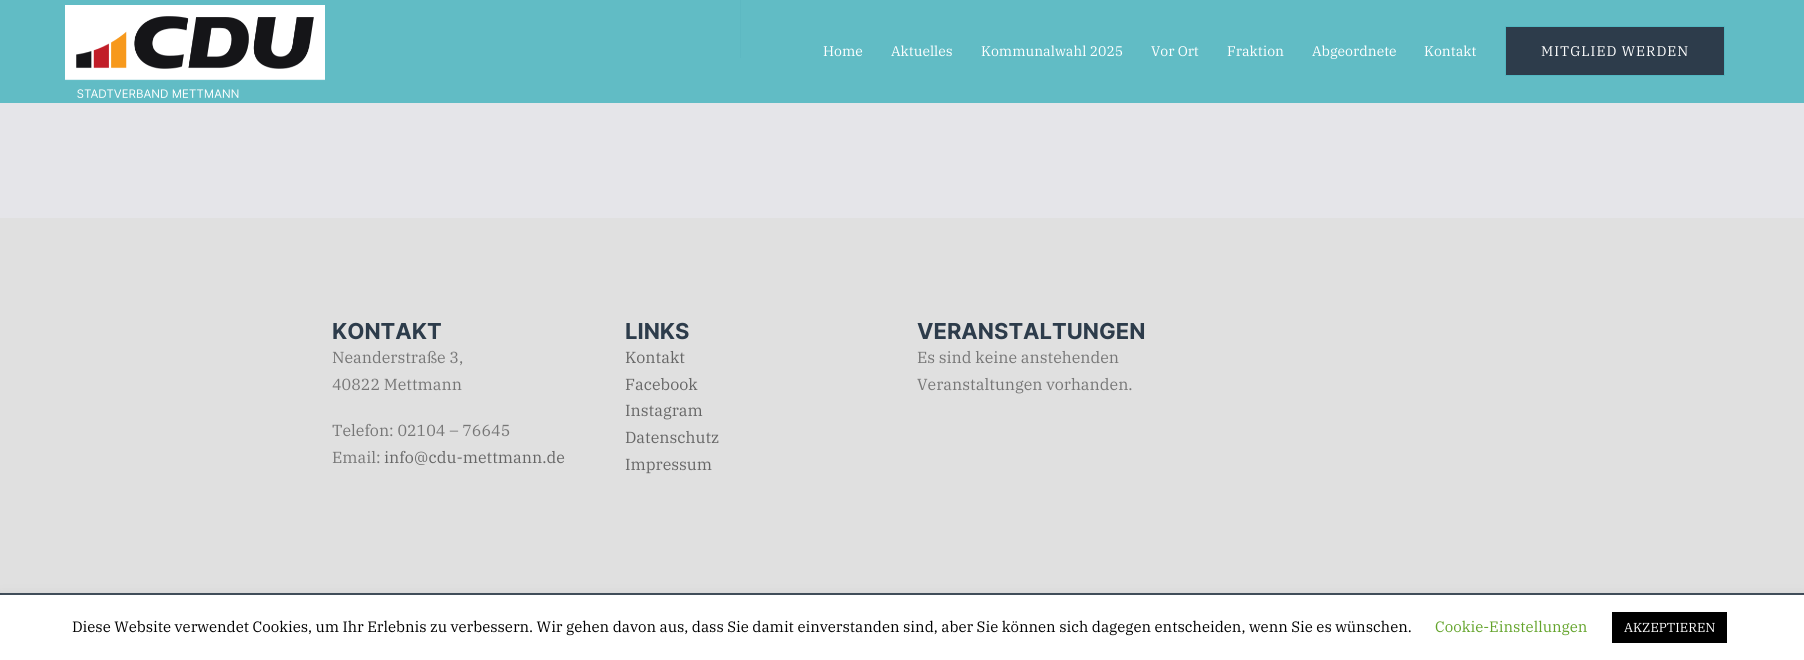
import math
import cairocffi as cairo

surface = cairo.ImageSurface(cairo.FORMAT_RGB24, 1804, 660)
cr = cairo.Context(surface)
options = cairo.FontOptions()
options.set_hint_metrics(cairo.HINT_METRICS_OFF)
options.set_hint_style(cairo.HINT_STYLE_NONE)
cr.set_font_options(options)
cr.set_miter_limit(4)


def use_color(code):
    cr.set_source_rgb(*(v / 255 for v in bytes.fromhex(code[-6:])))


def spaced_text(x, y, s, letter, word):
    cr.move_to(x, y)
    for ch in s:
        cr.show_text(ch)
        cr.rel_move_to(letter + word * (ch == ' '), 0)


def round_rect(x, y, w, h, r):
    cr.new_sub_path()
    for i, (u, v) in enumerate([(x + w - r, y + h - r), (x + r, y + h - r), (x + r, y + r), (x + w - r, y + r)]):
        cr.arc(u, v, r, i * math.pi / 2, (i + 1) * math.pi / 2)
    cr.close_path()


def shadow(x, y, w, h, r, blur, alpha):
    cr.push_group_with_content(cairo.CONTENT_ALPHA)
    cr.set_operator(cairo.OPERATOR_SOURCE)
    for i in range(15, -16, -2):
        e = blur * i / 6
        if min(w, h) + 2 * e > 0:
            cr.set_source_rgba(0, 0, 0, alpha * math.erfc((i - 1) / 8.5) / 2)
            round_rect(x - e, y - e, w + 2 * e, h + 2 * e, max(0, min(r + e + blur * .6, min(w, h) / 2 + e)))
            cr.fill()
    cr.mask(cr.pop_group())


def picture(path, x, y, w, h):
    cr.save()
    cr.set_source_surface(cairo.ImageSurface.create_from_png(path), x, y)
    cr.rectangle(x, y, w, h)
    cr.fill()
    cr.restore()


use_color("#e5e5e9")
cr.paint()
use_color("#61bcc5")
cr.rectangle(0, 0, 1804, 103)
cr.fill()
use_color("#5db8c2")
cr.rectangle(740, 0, 1, 58)
cr.fill()
picture("img1.png", 65, 5, 260, 93)
cr.select_font_face("IBM Plex Serif")
cr.set_font_size(14)
use_color("#ffffff")
cr.move_to(823, 56)
cr.show_text("Home")
cr.move_to(891, 56)
cr.show_text("Aktuelles")
cr.move_to(981, 56)
cr.show_text("Kommunalwahl 2025")
cr.move_to(1151, 56)
cr.show_text("Vor Ort")
cr.move_to(1227, 56)
cr.show_text("Fraktion")
cr.move_to(1312, 56)
cr.show_text("Abgeordnete")
cr.move_to(1424, 56)
cr.show_text("Kontakt")
use_color("#2d3c4b")
cr.rectangle(1505.5, 26.5, 219, 49)
cr.fill_preserve()
use_color("#52b7c1")
cr.set_line_width(1)
cr.stroke()
use_color("#ffffff")
spaced_text(1541, 56, "MITGLIED WERDEN", 1, 0)
use_color("#e0e0e0")
cr.rectangle(0, 218, 1804, 375)
cr.fill()
cr.select_font_face("Inter", cairo.FONT_SLANT_NORMAL, cairo.FONT_WEIGHT_BOLD)
cr.set_font_size(22)
use_color("#2d3c4b")
cr.move_to(332, 339)
cr.show_text("KONTAKT")
cr.select_font_face("IBM Plex Serif")
cr.set_font_size(16)
use_color("#767676")
cr.move_to(332, 363)
cr.show_text("Neanderstraße 3,")
cr.move_to(332, 390)
cr.show_text("40822 Mettmann")
cr.move_to(332, 436)
cr.show_text("Telefon: 02104 – 76645")
cr.move_to(332, 463)
cr.show_text("Email:")
use_color("#666666")
cr.move_to(384, 463)
cr.show_text("info@cdu-mettmann.de")
cr.select_font_face("Inter", cairo.FONT_SLANT_NORMAL, cairo.FONT_WEIGHT_BOLD)
cr.set_font_size(22)
use_color("#2d3c4b")
cr.move_to(625, 339)
cr.show_text("LINKS")
cr.select_font_face("IBM Plex Serif")
cr.set_font_size(16)
use_color("#666666")
cr.move_to(625, 363)
cr.show_text("Kontakt")
cr.move_to(625, 390)
cr.show_text("Facebook")
cr.move_to(625, 416)
cr.show_text("Instagram")
cr.move_to(625, 443)
cr.show_text("Datenschutz")
cr.move_to(625, 470)
cr.show_text("Impressum")
cr.select_font_face("Inter", cairo.FONT_SLANT_NORMAL, cairo.FONT_WEIGHT_BOLD)
cr.set_font_size(22)
use_color("#2d3c4b")
cr.move_to(917, 339)
cr.show_text("VERANSTALTUNGEN")
cr.select_font_face("IBM Plex Serif")
cr.set_font_size(16)
use_color("#767676")
cr.move_to(917, 363)
cr.show_text("Es sind keine anstehenden")
cr.move_to(917, 390)
cr.show_text("Veranstaltungen vorhanden.")
use_color("#2d3c4b")
cr.rectangle(0, 593, 1804, 2)
cr.fill()
use_color("#acabab")
shadow(0, 594, 1804, 65, 0, 5, 0.3)
use_color("#ffffff")
cr.rectangle(0, 595, 1804, 65)
cr.fill()
cr.set_font_size(15)
use_color("#000000")
cr.move_to(72, 632)
cr.show_text("Diese Website verwendet Cookies, um Ihr Erlebnis zu verbessern. Wir gehen davon aus, dass Sie damit einverstanden sind, aber Sie können sich dagegen entscheiden, wenn Sie es wünschen.")
use_color("#62a329")
cr.move_to(1435, 632)
cr.show_text("Cookie-Einstellungen")
use_color("#000000")
cr.rectangle(1612, 612, 115, 31)
cr.fill()
cr.set_font_size(13)
use_color("#ffffff")
cr.move_to(1624, 632)
cr.show_text("AKZEPTIEREN")
surface.write_to_png("result.png")
